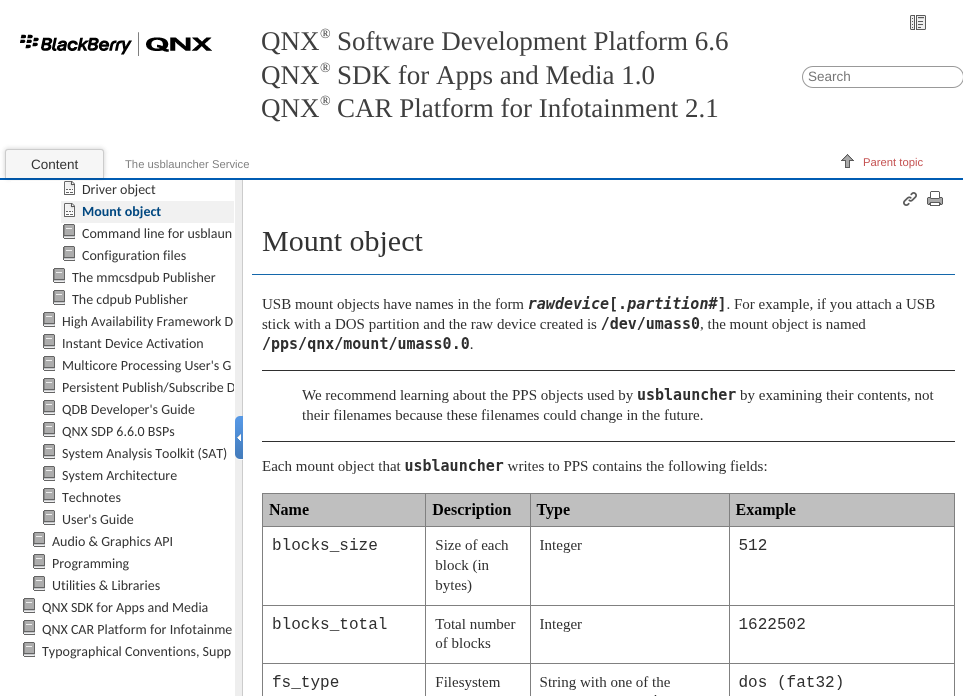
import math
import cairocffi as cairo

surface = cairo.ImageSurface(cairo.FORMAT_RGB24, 963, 699)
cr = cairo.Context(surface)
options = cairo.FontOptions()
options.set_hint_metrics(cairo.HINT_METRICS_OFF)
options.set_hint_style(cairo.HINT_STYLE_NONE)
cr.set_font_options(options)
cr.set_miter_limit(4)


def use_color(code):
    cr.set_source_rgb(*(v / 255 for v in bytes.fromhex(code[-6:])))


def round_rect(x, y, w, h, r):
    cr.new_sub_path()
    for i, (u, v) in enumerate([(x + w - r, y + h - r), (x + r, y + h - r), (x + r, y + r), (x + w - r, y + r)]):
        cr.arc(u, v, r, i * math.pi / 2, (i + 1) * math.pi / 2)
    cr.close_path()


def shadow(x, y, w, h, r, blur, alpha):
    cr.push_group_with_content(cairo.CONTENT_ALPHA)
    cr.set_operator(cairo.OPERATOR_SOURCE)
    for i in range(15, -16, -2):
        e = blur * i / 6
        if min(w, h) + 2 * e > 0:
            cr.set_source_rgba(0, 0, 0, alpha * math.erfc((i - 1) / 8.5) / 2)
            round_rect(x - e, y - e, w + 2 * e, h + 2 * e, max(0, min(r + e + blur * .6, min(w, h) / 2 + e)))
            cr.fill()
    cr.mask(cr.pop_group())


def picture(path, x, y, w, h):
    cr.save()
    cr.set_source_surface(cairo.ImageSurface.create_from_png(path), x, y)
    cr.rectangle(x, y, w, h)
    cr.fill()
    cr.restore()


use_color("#ffffff")
cr.paint()
picture("img1.png", 910, 15, 16, 15)
picture("img2.png", 20, 32, 192, 24)
cr.select_font_face("Liberation Serif")
cr.set_font_size(27)
use_color("#3f3f3f")
cr.move_to(261, 50)
cr.show_text("QNX")
cr.set_font_size(14)
cr.move_to(320, 38)
cr.show_text("®")
cr.set_font_size(27)
cr.move_to(337, 50)
cr.show_text("Software Development Platform 6.6")
cr.move_to(261, 84)
cr.show_text("QNX")
cr.set_font_size(14)
cr.move_to(320, 72)
cr.show_text("®")
cr.set_font_size(27)
cr.move_to(337, 84)
cr.show_text("SDK for Apps and Media 1.0")
cr.move_to(261, 117)
cr.show_text("QNX")
cr.set_font_size(14)
cr.move_to(320, 105)
cr.show_text("®")
cr.set_font_size(27)
cr.move_to(337, 117)
cr.show_text("CAR Platform for Infotainment 2.1")
round_rect(802.5, 66.5, 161, 21, 10.5)
use_color("#999999")
cr.set_line_width(1)
cr.stroke()
cr.select_font_face("Liberation Sans")
cr.set_font_size(13.5)
use_color("#757575")
cr.move_to(808, 81)
cr.show_text("Search")
use_color("#005cb3")
cr.rectangle(0, 178, 963, 2)
cr.fill()
use_color("#000000")
shadow(5, 149, 99, 29, 3, 2.5, 0.2)
use_color("#f6f6f6")
cr.new_path()
cr.move_to(8, 149)
cr.line_to(101, 149)
cr.curve_to(102.5, 149, 104, 150.5, 104, 152)
cr.line_to(104, 178)
cr.line_to(5, 178)
cr.line_to(5, 152)
cr.curve_to(5, 150.5, 6.5, 149, 8, 149)
cr.close_path()
cr.fill()
use_color("#cccccc")
cr.set_fill_rule(cairo.FILL_RULE_EVEN_ODD)
cr.new_path()
cr.move_to(8, 149)
cr.line_to(101, 149)
cr.curve_to(103, 149, 104, 150, 104, 152)
cr.line_to(104, 178)
cr.line_to(5, 178)
cr.line_to(5, 152)
cr.curve_to(5, 150, 6, 149, 8, 149)
cr.close_path()
cr.move_to(8, 150)
cr.line_to(101, 150)
cr.curve_to(102, 150, 103, 151, 103, 152)
cr.line_to(103, 178)
cr.line_to(6, 178)
cr.line_to(6, 152)
cr.curve_to(6, 151, 7, 150, 8, 150)
cr.close_path()
cr.fill()
use_color("#333333")
cr.move_to(31, 169)
cr.show_text("Content")
cr.set_font_size(11.25)
use_color("#808080")
cr.move_to(125, 168)
cr.show_text("The usblauncher Service")
picture("img3.png", 841, 154, 13, 14)
use_color("#c45050")
cr.move_to(863, 166)
cr.show_text("Parent topic")
use_color("#ffffff")
cr.rectangle(11, 181, 91, 1)
cr.fill()
picture("img4.png", 64, 181, 11, 14)
cr.select_font_face("Carlito")
cr.set_font_size(14)
use_color("#333333")
cr.move_to(82, 194)
cr.show_text("Driver object")
use_color("#f1f1f1")
cr.rectangle(61, 201, 173, 22)
cr.fill()
picture("img5.png", 64, 203, 11, 14)
cr.select_font_face("Carlito", cairo.FONT_SLANT_NORMAL, cairo.FONT_WEIGHT_BOLD)
use_color("#004780")
cr.move_to(82, 216)
cr.show_text("Mount object")
picture("img6.png", 63, 224, 12, 15)
cr.select_font_face("Carlito")
use_color("#333333")
cr.move_to(82, 238)
cr.show_text("Command line for usblaun")
picture("img6.png", 63, 246, 12, 15)
cr.move_to(82, 260)
cr.show_text("Configuration files")
picture("img6.png", 53, 268, 12, 15)
cr.move_to(72, 282)
cr.show_text("The mmcsdpub Publisher")
picture("img6.png", 53, 290, 12, 15)
cr.move_to(72, 304)
cr.show_text("The cdpub Publisher")
picture("img6.png", 43, 312, 12, 15)
cr.move_to(62, 326)
cr.show_text("High Availability Framework D")
picture("img6.png", 43, 334, 12, 15)
cr.move_to(62, 348)
cr.show_text("Instant Device Activation")
picture("img6.png", 43, 356, 12, 15)
cr.move_to(62, 370)
cr.show_text("Multicore Processing User's G")
picture("img6.png", 43, 378, 12, 15)
cr.save()
cr.set_fill_rule(cairo.FILL_RULE_WINDING)
cr.rectangle(1, 181, 233, 516)
cr.clip()
cr.move_to(62, 392)
cr.show_text("Persistent Publish/Subscribe D")
cr.restore()
picture("img6.png", 43, 400, 12, 15)
cr.move_to(62, 414)
cr.show_text("QDB Developer's Guide")
picture("img6.png", 43, 422, 12, 15)
cr.move_to(62, 436)
cr.show_text("QNX SDP 6.6.0 BSPs")
picture("img6.png", 43, 444, 12, 15)
cr.move_to(62, 458)
cr.show_text("System Analysis Toolkit (SAT)")
picture("img6.png", 43, 466, 12, 15)
cr.move_to(62, 480)
cr.show_text("System Architecture")
picture("img6.png", 43, 488, 12, 15)
cr.move_to(62, 502)
cr.show_text("Technotes")
picture("img6.png", 43, 510, 12, 15)
cr.move_to(62, 524)
cr.show_text("User's Guide")
picture("img6.png", 33, 532, 12, 15)
cr.move_to(52, 546)
cr.show_text("Audio & Graphics API")
picture("img6.png", 33, 554, 12, 15)
cr.move_to(52, 568)
cr.show_text("Programming")
picture("img6.png", 33, 576, 12, 15)
cr.move_to(52, 590)
cr.show_text("Utilities & Libraries")
picture("img6.png", 23, 598, 12, 15)
cr.move_to(42, 612)
cr.show_text("QNX SDK for Apps and Media")
picture("img6.png", 23, 620, 12, 15)
cr.move_to(42, 634)
cr.show_text("QNX CAR Platform for Infotainme")
picture("img6.png", 23, 642, 12, 15)
cr.move_to(42, 656)
cr.show_text("Typographical Conventions, Supp")
use_color("#eeeeee")
cr.rectangle(235, 180, 7, 516)
cr.fill()
use_color("#cccccc")
cr.rectangle(242, 180, 1, 516)
cr.fill()
picture("img7.png", 235, 416, 8, 44)
picture("img8.png", 252, 191, 703, 505)
surface.write_to_png("result.png")
